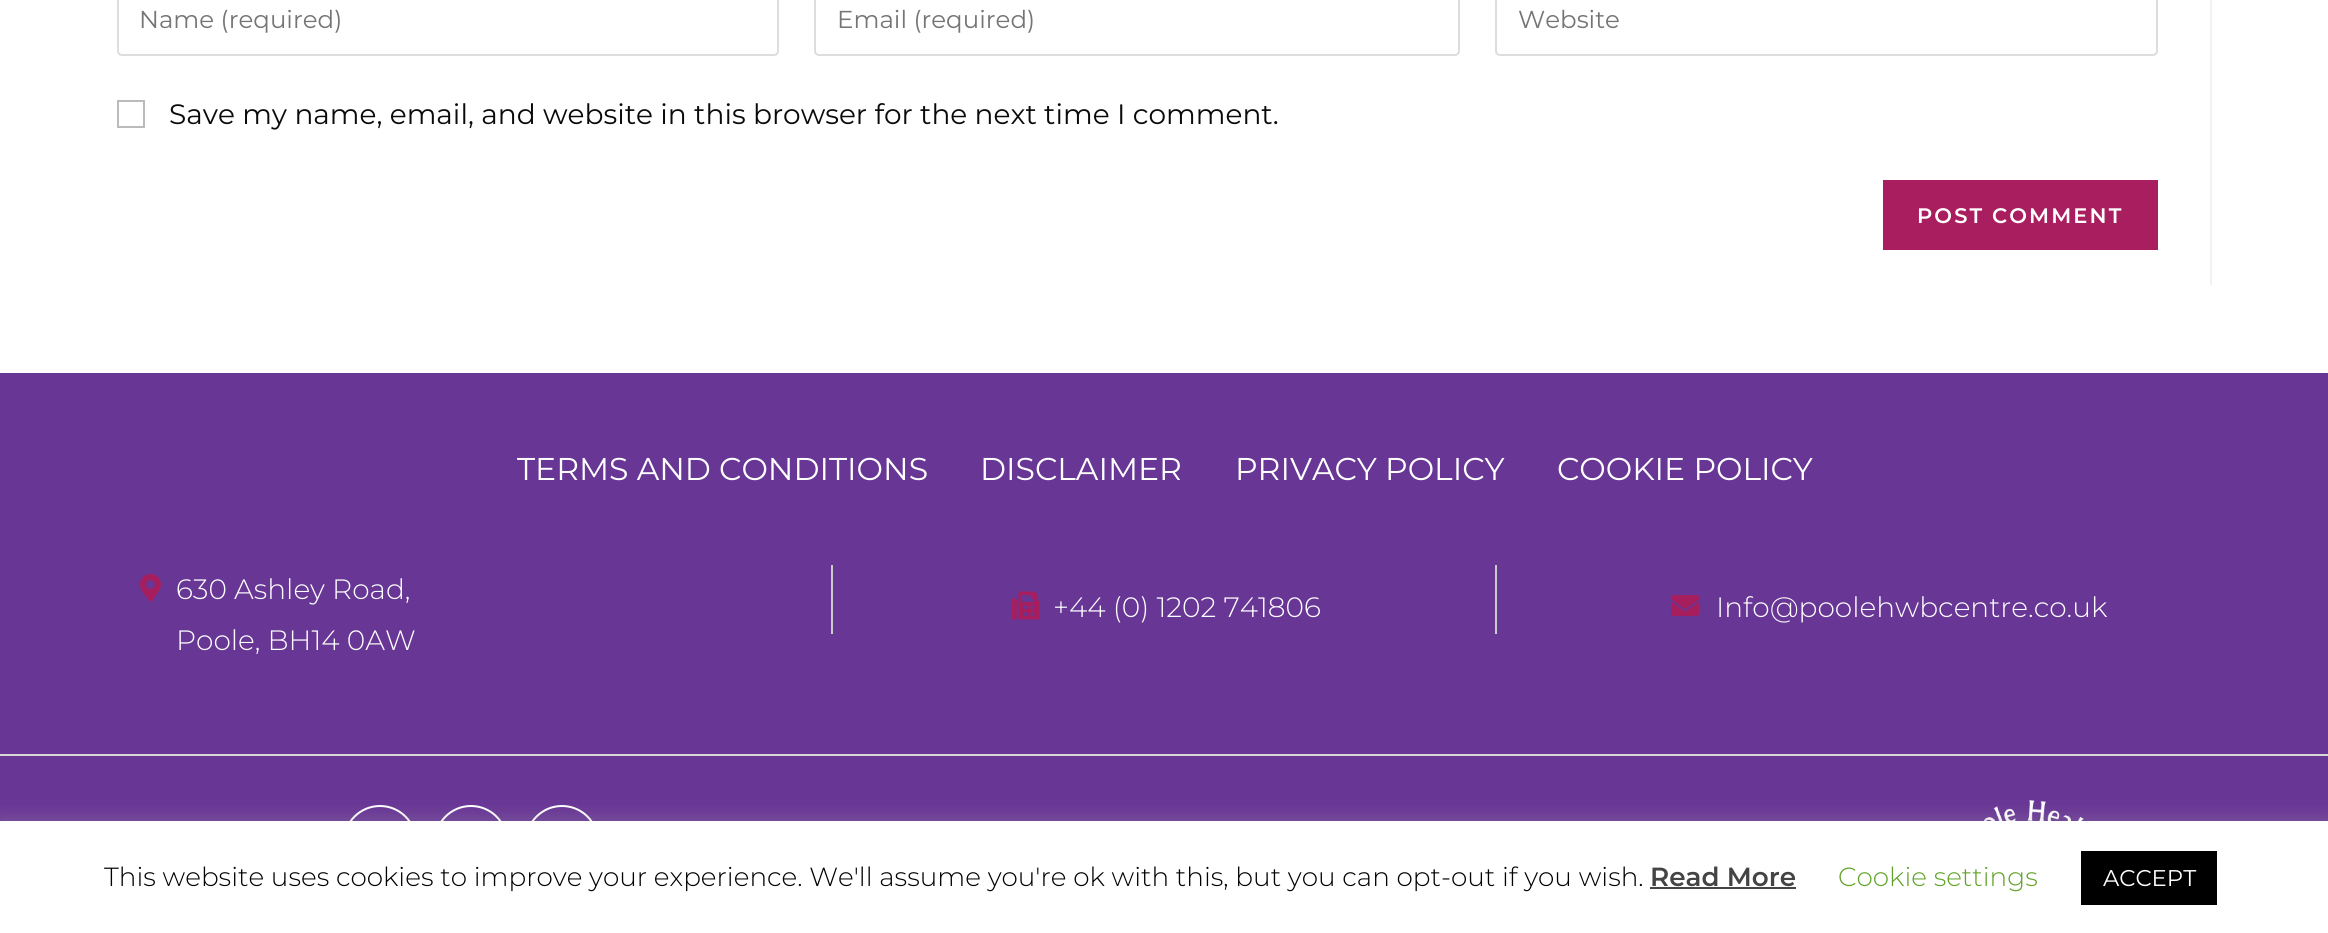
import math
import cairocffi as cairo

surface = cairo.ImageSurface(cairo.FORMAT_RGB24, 2328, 933)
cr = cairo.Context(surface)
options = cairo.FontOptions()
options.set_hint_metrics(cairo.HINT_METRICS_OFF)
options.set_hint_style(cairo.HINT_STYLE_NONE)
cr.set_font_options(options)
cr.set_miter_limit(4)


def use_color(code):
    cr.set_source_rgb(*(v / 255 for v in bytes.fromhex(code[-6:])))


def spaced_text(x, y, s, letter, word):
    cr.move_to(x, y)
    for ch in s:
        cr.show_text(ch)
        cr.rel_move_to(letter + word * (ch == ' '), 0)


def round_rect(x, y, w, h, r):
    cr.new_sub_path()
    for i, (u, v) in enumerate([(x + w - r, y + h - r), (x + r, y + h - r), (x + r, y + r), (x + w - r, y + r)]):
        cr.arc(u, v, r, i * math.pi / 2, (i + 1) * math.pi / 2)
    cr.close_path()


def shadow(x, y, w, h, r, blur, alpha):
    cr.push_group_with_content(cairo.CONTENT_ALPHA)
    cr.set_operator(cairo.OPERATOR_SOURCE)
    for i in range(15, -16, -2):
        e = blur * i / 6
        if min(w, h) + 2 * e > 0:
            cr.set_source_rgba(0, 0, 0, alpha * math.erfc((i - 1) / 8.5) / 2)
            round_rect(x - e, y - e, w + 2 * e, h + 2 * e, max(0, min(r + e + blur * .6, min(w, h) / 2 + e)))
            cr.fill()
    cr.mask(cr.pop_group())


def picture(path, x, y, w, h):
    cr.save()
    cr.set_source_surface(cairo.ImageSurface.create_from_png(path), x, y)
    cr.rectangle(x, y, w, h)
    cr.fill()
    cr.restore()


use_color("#ffffff")
cr.paint()
use_color("#f1f1f1")
cr.rectangle(2210, 0, 2, 285)
cr.fill()
round_rect(118, -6, 660, 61, 4)
use_color("#dddddd")
cr.stroke()
cr.select_font_face("Montserrat")
cr.set_font_size(24.5)
use_color("#757575")
cr.move_to(139, 28)
cr.show_text("Name (required)")
round_rect(815, -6, 644, 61, 4)
use_color("#dddddd")
cr.stroke()
use_color("#757575")
cr.move_to(837, 28)
cr.show_text("Email (required)")
round_rect(1496, -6, 661, 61, 4)
use_color("#dddddd")
cr.stroke()
use_color("#757575")
cr.move_to(1518, 28)
cr.show_text("Website")
cr.rectangle(118, 101, 26, 26)
use_color("#bbbbbb")
cr.stroke()
cr.set_font_size(28)
use_color("#0a0a0a")
cr.move_to(169, 124)
cr.show_text("Save my name, email, and website in this browser for the next time I comment.")
use_color("#a91e5f")
cr.rectangle(1883, 180, 275, 70)
cr.fill()
cr.select_font_face("Montserrat SemiBold")
cr.set_font_size(21)
use_color("#ffffff")
spaced_text(1917, 223, "POST COMMENT", 2.1, 0)
use_color("#683695")
cr.rectangle(0, 373, 2328, 381)
cr.fill()
use_color("#d8d8d8")
cr.rectangle(0, 754, 2328, 2)
cr.fill()
cr.select_font_face("Montserrat")
cr.set_font_size(31.5)
use_color("#ffffff")
cr.move_to(517, 480)
cr.show_text("TERMS AND CONDITIONS")
cr.move_to(980, 480)
cr.show_text("DISCLAIMER")
cr.move_to(1235, 480)
cr.show_text("PRIVACY POLICY")
cr.move_to(1557, 480)
cr.show_text("COOKIE POLICY")
picture("img1.png", 140, 574, 21, 28)
cr.select_font_face("Montserrat Light")
cr.set_font_size(28)
cr.move_to(176, 599)
cr.show_text("630 Ashley Road,")
cr.move_to(176, 650)
cr.show_text("Poole, BH14 0AW")
use_color("#cbcbcb")
cr.rectangle(1495, 565, 2, 69)
cr.fill()
cr.rectangle(831, 565, 2, 69)
cr.fill()
picture("img2.png", 1011, 591, 29, 29)
use_color("#ffffff")
cr.move_to(1053, 617)
cr.show_text("+44 (0) 1202 741806")
picture("img3.png", 1671, 595, 29, 21)
cr.move_to(1716, 617)
cr.show_text("Info@poolehwbcentre.co.uk")
use_color("#683695")
cr.rectangle(0, 756, 2328, 65)
cr.fill()
cr.arc(380, 842, 36, 0, 2 * math.pi)
use_color("#ffffff")
cr.stroke()
cr.arc(471, 842, 36, 0, 2 * math.pi)
cr.stroke()
cr.arc(562, 842, 36, 0, 2 * math.pi)
cr.stroke()
picture("img4.png", 1983, 800, 101, 21)
use_color("#acabab")
shadow(0, 819, 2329, 114, 0, 9, 0.3)
use_color("#ffffff")
cr.rectangle(0, 821, 2328, 112)
cr.fill()
cr.set_font_size(26.25)
use_color("#000000")
cr.move_to(104, 886)
cr.show_text("This website uses cookies to improve your experience. We'll assume you're ok with this, but you can opt-out if you wish.")
cr.select_font_face("Montserrat SemiBold")
use_color("#444444")
cr.move_to(1650, 886)
cr.show_text("Read More")
cr.rectangle(1650, 887, 146, 2)
cr.fill()
cr.select_font_face("Montserrat Light")
use_color("#62a329")
cr.move_to(1838, 886)
cr.show_text("Cookie settings")
use_color("#000000")
cr.rectangle(2081, 851, 136, 54)
cr.fill()
cr.select_font_face("Montserrat")
cr.set_font_size(22.75)
use_color("#ffffff")
cr.move_to(2103, 886)
cr.show_text("ACCEPT")
surface.write_to_png("result.png")
